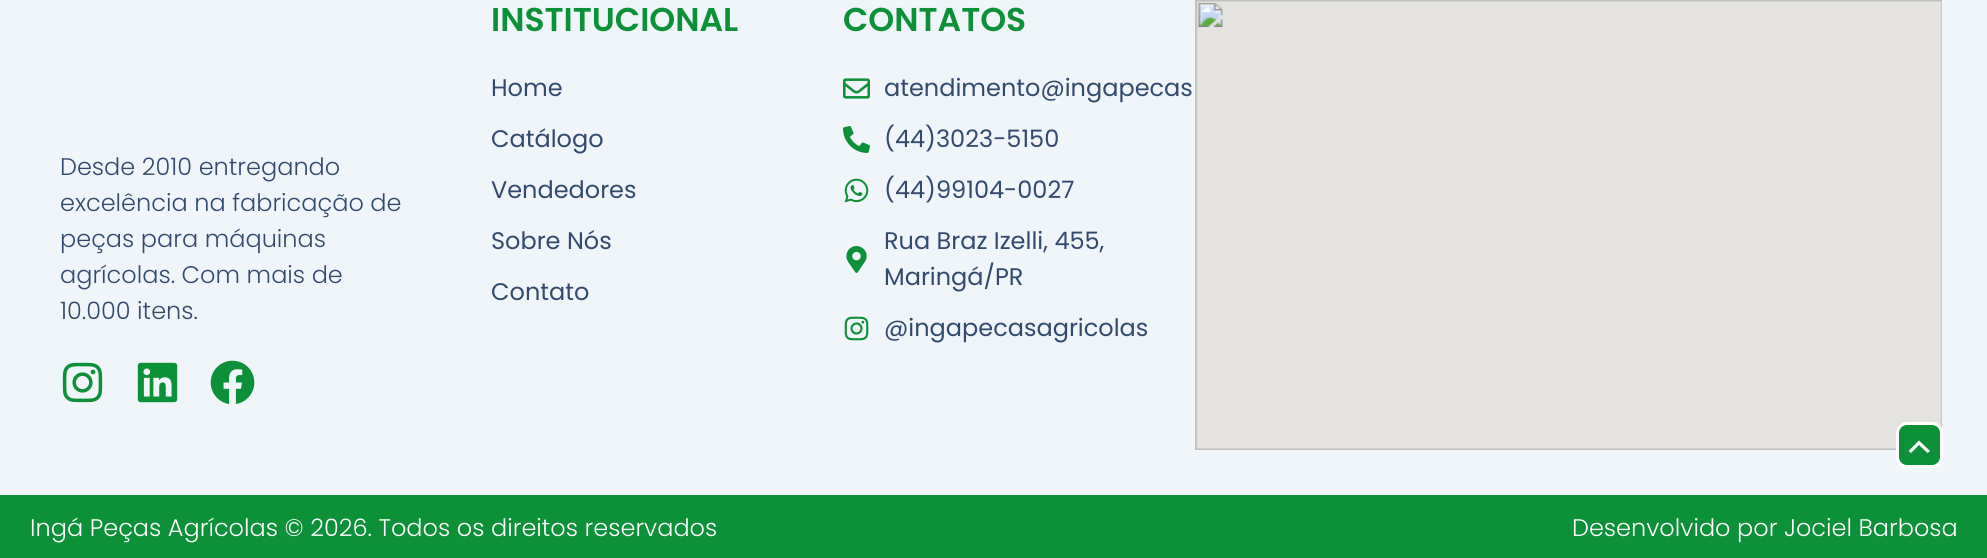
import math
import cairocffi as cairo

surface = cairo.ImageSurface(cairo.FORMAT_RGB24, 1987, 558)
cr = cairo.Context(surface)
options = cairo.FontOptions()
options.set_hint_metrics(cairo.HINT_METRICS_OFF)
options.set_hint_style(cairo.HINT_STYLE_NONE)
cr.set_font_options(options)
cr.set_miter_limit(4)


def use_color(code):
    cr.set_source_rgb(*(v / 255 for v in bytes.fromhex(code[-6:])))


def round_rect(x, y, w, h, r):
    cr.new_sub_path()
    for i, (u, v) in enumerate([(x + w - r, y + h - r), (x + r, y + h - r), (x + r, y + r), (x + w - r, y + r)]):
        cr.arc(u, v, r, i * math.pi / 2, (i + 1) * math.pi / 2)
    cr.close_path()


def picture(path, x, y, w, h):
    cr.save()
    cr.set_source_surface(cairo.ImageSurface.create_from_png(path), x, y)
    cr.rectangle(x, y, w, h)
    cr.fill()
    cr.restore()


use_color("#f0f5fa")
cr.paint()
cr.select_font_face("Poppins Light")
cr.set_font_size(24)
use_color("#324a6d")
cr.move_to(60, 175)
cr.show_text("Desde 2010 entregando")
cr.move_to(60, 211)
cr.show_text("excelência na fabricação de")
cr.move_to(60, 247)
cr.show_text("peças para máquinas")
cr.move_to(60, 283)
cr.show_text("agrícolas. Com mais de")
cr.move_to(60, 319)
cr.show_text("10.000 itens.")
picture("img1.png", 62, 362, 41, 41)
picture("img2.png", 137, 362, 41, 41)
picture("img3.png", 210, 360, 45, 44)
cr.select_font_face("Poppins SemiBold")
cr.set_font_size(33)
use_color("#0c9038")
cr.move_to(491, 31)
cr.show_text("INSTITUCIONAL")
cr.select_font_face("Poppins")
cr.set_font_size(24)
use_color("#324a6d")
cr.move_to(491, 96)
cr.show_text("Home")
cr.move_to(491, 147)
cr.show_text("Catálogo")
cr.move_to(491, 198)
cr.show_text("Vendedores")
cr.move_to(491, 249)
cr.show_text("Sobre Nós")
cr.move_to(491, 300)
cr.show_text("Contato")
cr.select_font_face("Poppins SemiBold")
cr.set_font_size(33)
use_color("#0c9038")
cr.move_to(843, 31)
cr.show_text("CONTATOS")
picture("img4.png", 843, 78, 27, 21)
cr.select_font_face("Poppins")
cr.set_font_size(24)
use_color("#324a6d")
cr.move_to(884, 96)
cr.show_text("atendimento@ingapecas")
picture("img5.png", 843, 126, 27, 27)
cr.move_to(884, 147)
cr.show_text("(44)3023-5150")
picture("img6.png", 844, 178, 25, 25)
cr.move_to(884, 198)
cr.show_text("(44)99104-0027")
picture("img7.png", 846, 246, 21, 27)
cr.move_to(884, 249)
cr.show_text("Rua Braz Izelli, 455,")
cr.move_to(884, 285)
cr.show_text("Maringá/PR")
picture("img8.png", 844, 316, 25, 25)
cr.move_to(884, 336)
cr.show_text("@ingapecasagricolas")
picture("img9.png", 1195, 0, 747, 450)
use_color("#0c9038")
cr.rectangle(0, 495, 1987, 63)
cr.fill()
cr.select_font_face("Poppins Light")
use_color("#ffffff")
cr.move_to(30, 536)
cr.show_text("Ingá Peças Agrícolas © 2026. Todos os direitos reservados")
cr.move_to(1572, 536)
cr.show_text("Desenvolvido por Jociel Barbosa")
use_color("#0c9038")
round_rect(1897.5, 423.5, 44, 43, 9.5)
cr.fill_preserve()
use_color("#ffffff")
cr.set_line_width(3)
cr.stroke()
cr.new_path()
cr.move_to(1930, 451)
cr.line_to(1919, 440.5)
cr.line_to(1908.5, 451)
cr.line_to(1911, 453)
cr.line_to(1919, 445)
cr.line_to(1927.5, 453)
cr.close_path()
cr.fill()
surface.write_to_png("result.png")
